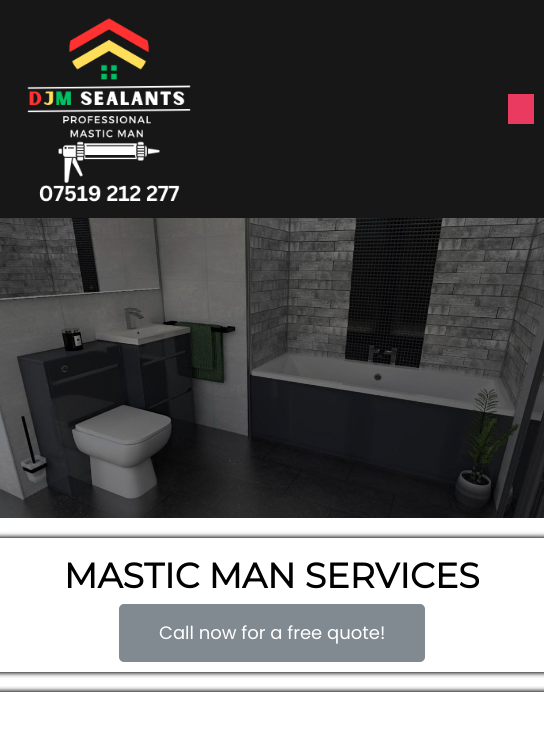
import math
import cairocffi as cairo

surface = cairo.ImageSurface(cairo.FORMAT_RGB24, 544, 748)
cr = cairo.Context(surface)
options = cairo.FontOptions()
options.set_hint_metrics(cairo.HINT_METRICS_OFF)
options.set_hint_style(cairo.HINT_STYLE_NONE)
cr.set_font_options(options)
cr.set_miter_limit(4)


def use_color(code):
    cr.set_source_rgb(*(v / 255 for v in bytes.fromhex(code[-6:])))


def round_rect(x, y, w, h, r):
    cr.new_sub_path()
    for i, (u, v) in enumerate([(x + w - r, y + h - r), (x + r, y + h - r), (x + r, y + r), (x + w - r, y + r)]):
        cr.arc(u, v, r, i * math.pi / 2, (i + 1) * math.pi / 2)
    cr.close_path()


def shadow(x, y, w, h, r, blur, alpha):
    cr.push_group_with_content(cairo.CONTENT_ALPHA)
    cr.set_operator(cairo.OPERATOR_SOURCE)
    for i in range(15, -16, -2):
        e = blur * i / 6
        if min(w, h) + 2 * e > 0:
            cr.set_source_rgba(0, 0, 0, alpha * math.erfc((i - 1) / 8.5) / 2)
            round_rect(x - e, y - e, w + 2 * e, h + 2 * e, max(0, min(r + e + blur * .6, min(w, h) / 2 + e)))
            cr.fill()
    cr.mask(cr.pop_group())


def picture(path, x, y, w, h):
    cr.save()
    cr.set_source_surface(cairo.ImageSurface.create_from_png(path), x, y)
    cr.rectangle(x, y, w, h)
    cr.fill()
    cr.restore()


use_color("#ffffff")
cr.paint()
use_color("#171717")
cr.rectangle(0, 0, 544, 218)
cr.fill()
picture("img1.png", 27, 18, 164, 184)
use_color("#ea3a60")
cr.rectangle(508, 94, 26, 30)
cr.fill()
picture("img2.png", 0, 218, 544, 300)
cr.save()
cr.set_fill_rule(cairo.FILL_RULE_EVEN_ODD)
cr.new_path()
cr.move_to(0, 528)
cr.line_to(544, 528)
cr.line_to(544, 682)
cr.line_to(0, 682)
cr.close_path()
cr.move_to(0, 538)
cr.line_to(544, 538)
cr.line_to(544, 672)
cr.line_to(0, 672)
cr.close_path()
cr.clip()
use_color("#000000")
shadow(-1, 537, 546, 136, 0, 2.5, 1)
cr.restore()
cr.select_font_face("Montserrat", cairo.FONT_SLANT_NORMAL, cairo.FONT_WEIGHT_BOLD)
cr.set_font_size(35)
use_color("#000000")
cr.move_to(64, 588)
cr.show_text("MASTIC MAN SERVICES")
use_color("#818a91")
round_rect(119, 604, 306, 58, 5)
cr.fill()
cr.select_font_face("Poppins")
cr.set_font_size(18)
use_color("#ffffff")
cr.move_to(159, 639)
cr.show_text("Call now for a free quote!")
cr.save()
cr.rectangle(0, 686, 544, 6)
cr.clip()
use_color("#000000")
shadow(-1, 691, 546, 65, 0, 2.5, 1)
cr.restore()
surface.write_to_png("result.png")
